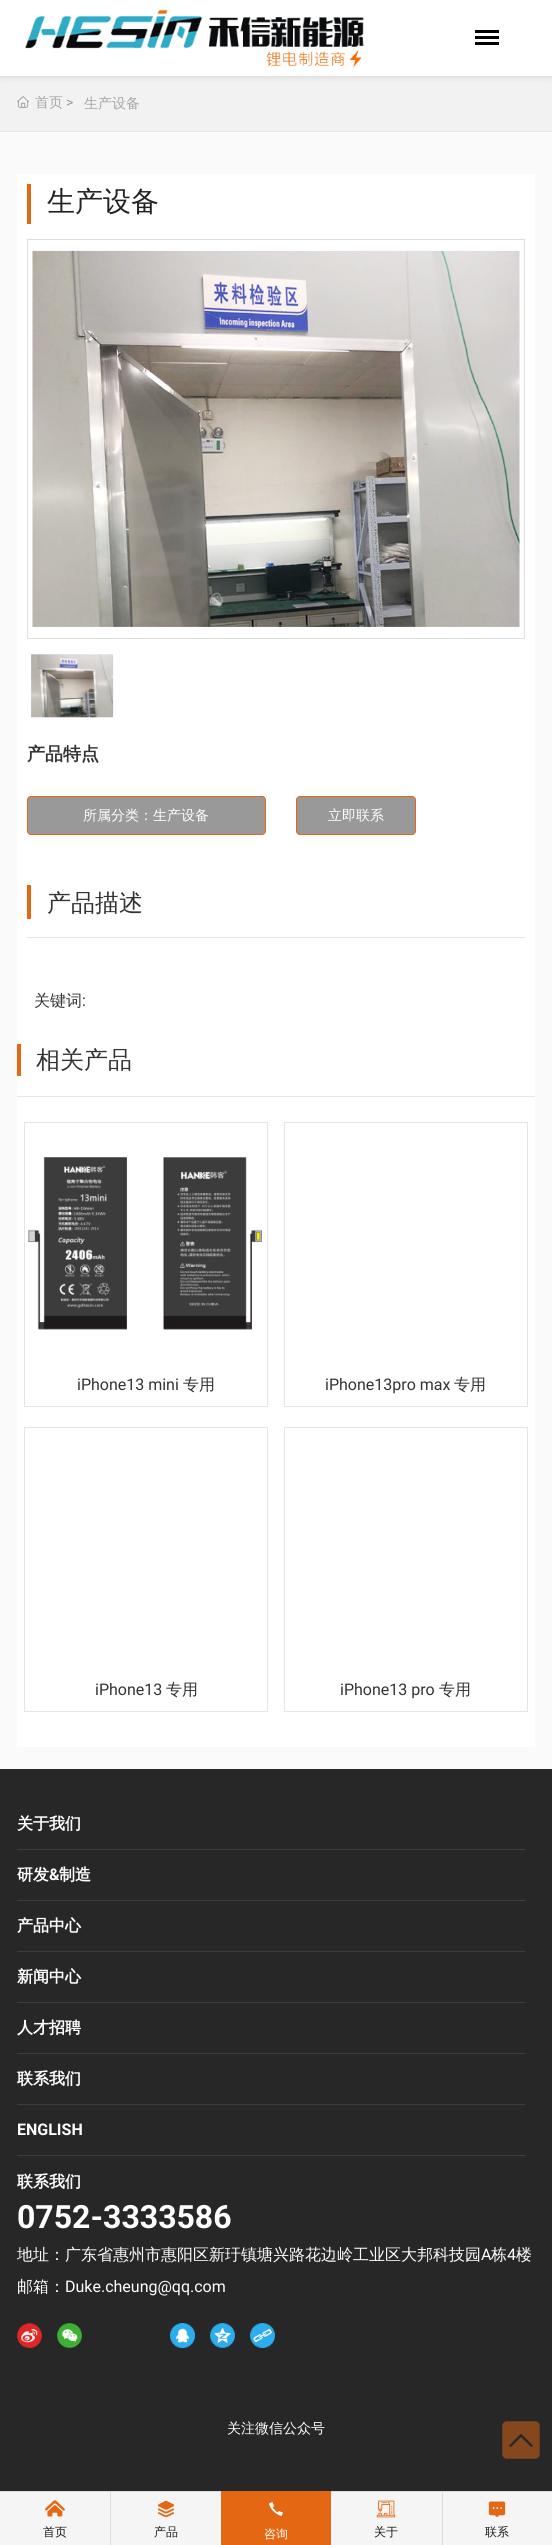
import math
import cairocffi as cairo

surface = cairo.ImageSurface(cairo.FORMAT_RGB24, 552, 2545)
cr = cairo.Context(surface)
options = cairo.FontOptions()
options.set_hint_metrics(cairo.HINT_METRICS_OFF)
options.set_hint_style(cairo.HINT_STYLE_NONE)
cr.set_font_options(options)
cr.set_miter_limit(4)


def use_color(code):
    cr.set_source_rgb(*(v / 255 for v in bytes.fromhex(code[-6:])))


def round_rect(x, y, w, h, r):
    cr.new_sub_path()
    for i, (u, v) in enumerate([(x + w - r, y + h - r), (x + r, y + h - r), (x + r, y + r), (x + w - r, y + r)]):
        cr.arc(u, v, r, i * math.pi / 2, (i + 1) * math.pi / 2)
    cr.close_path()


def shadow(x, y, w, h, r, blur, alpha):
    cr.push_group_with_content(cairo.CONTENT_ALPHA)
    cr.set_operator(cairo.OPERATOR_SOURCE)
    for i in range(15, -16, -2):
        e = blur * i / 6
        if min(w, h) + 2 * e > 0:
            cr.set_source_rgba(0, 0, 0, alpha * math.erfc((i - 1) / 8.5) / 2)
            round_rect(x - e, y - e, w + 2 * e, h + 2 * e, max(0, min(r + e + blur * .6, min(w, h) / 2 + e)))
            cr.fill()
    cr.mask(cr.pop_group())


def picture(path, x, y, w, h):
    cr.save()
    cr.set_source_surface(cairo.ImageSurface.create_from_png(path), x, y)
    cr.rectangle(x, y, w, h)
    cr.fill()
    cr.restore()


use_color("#f2f2f3")
cr.paint()
use_color("#000000")
shadow(0, 0, 552, 76, 0, 4, 0.15)
use_color("#ffffff")
cr.rectangle(0, 0, 552, 76)
cr.fill()
picture("img1.png", 25, 9, 339, 59)
use_color("#000000")
cr.rectangle(475, 36, 24, 3)
cr.fill()
cr.rectangle(475, 30, 24, 3)
cr.fill()
cr.rectangle(475, 42, 24, 3)
cr.fill()
use_color("#e7e7e9")
cr.rectangle(0, 131, 552, 1)
cr.fill()
picture("img2.png", 17, 96, 12, 12)
cr.select_font_face("WenQuanYi Zen Hei Medium")
cr.set_font_size(14)
use_color("#a6a6a7")
cr.move_to(35, 107)
cr.show_text("首页")
cr.select_font_face("Roboto")
use_color("#999999")
cr.move_to(66, 107)
cr.show_text(">")
cr.select_font_face("WenQuanYi Zen Hei Medium")
use_color("#a6a6a7")
cr.move_to(84, 108)
cr.show_text("生产设备")
use_color("#fafafa")
cr.rectangle(0, 132, 552, 1637)
cr.fill()
use_color("#ffffff")
cr.rectangle(17, 174, 518, 1573)
cr.fill()
use_color("#e46713")
cr.rectangle(27, 184, 4, 40)
cr.fill()
cr.set_font_size(28)
use_color("#222222")
cr.move_to(47, 211)
cr.show_text("生产设备")
cr.rectangle(27.5, 239.5, 497, 399)
use_color("#dddddd")
cr.set_line_width(1)
cr.stroke()
picture("img3.png", 32, 250, 488, 377)
picture("img4.png", 31, 654, 83, 64)
cr.select_font_face("WenQuanYi Zen Hei", cairo.FONT_SLANT_NORMAL, cairo.FONT_WEIGHT_BOLD)
cr.set_font_size(18)
use_color("#333333")
cr.move_to(27, 760)
cr.show_text("产品特点")
use_color("#999999")
round_rect(27.5, 796.5, 238, 38, 3.5)
cr.fill_preserve()
use_color("#e46713")
cr.stroke()
cr.select_font_face("WenQuanYi Zen Hei Medium")
cr.set_font_size(14)
use_color("#ffffff")
cr.move_to(83, 820)
cr.show_text("所属分类：生产设备")
use_color("#999999")
round_rect(296.5, 796.5, 119, 38, 3.5)
cr.fill_preserve()
use_color("#e46713")
cr.stroke()
use_color("#ffffff")
cr.move_to(328, 820)
cr.show_text("立即联系")
use_color("#e46713")
cr.rectangle(27, 885, 4, 34)
cr.fill()
cr.set_font_size(24)
use_color("#333333")
cr.move_to(47, 911)
cr.show_text("产品描述")
use_color("#e6e6e6")
cr.rectangle(27, 937, 498, 1)
cr.fill()
cr.set_font_size(16)
use_color("#333333")
cr.move_to(34, 1006)
cr.show_text("关键词")
cr.select_font_face("Roboto")
cr.move_to(82, 1006)
cr.show_text(":")
use_color("#e46713")
cr.rectangle(17, 1044, 4, 32)
cr.fill()
cr.select_font_face("WenQuanYi Zen Hei Medium")
cr.set_font_size(24)
use_color("#333333")
cr.move_to(36, 1068)
cr.show_text("相关产品")
use_color("#e5e5e5")
cr.rectangle(17, 1096, 518, 1)
cr.fill()
cr.rectangle(24.5, 1122.5, 243, 284)
cr.stroke()
picture("img5.png", 28, 1157, 234, 173)
cr.select_font_face("Roboto")
cr.set_font_size(16)
use_color("#333333")
cr.move_to(77, 1390)
cr.show_text("iPhone13 mini")
cr.select_font_face("WenQuanYi Zen Hei Medium")
cr.move_to(183, 1390)
cr.show_text("专用")
cr.rectangle(284.5, 1122.5, 243, 284)
use_color("#e5e5e5")
cr.stroke()
cr.select_font_face("Roboto")
use_color("#333333")
cr.move_to(325, 1390)
cr.show_text("iPhone13pro max")
cr.select_font_face("WenQuanYi Zen Hei Medium")
cr.move_to(454, 1390)
cr.show_text("专用")
cr.rectangle(24.5, 1427.5, 243, 284)
use_color("#e5e5e5")
cr.stroke()
cr.select_font_face("Roboto")
use_color("#333333")
cr.move_to(95, 1695)
cr.show_text("iPhone13")
cr.select_font_face("WenQuanYi Zen Hei Medium")
cr.move_to(166, 1695)
cr.show_text("专用")
cr.rectangle(284.5, 1427.5, 243, 284)
use_color("#e5e5e5")
cr.stroke()
cr.select_font_face("Roboto")
use_color("#333333")
cr.move_to(340, 1695)
cr.show_text("iPhone13 pro")
cr.select_font_face("WenQuanYi Zen Hei Medium")
cr.move_to(439, 1695)
cr.show_text("专用")
use_color("#272727")
cr.rectangle(0, 1769, 552, 722)
cr.fill()
use_color("#3d3d3d")
cr.rectangle(17, 1849, 508, 1)
cr.fill()
cr.select_font_face("WenQuanYi Zen Hei", cairo.FONT_SLANT_NORMAL, cairo.FONT_WEIGHT_BOLD)
use_color("#ffffff")
cr.move_to(17, 1829)
cr.show_text("关于我们")
use_color("#3d3d3d")
cr.rectangle(17, 1900, 508, 1)
cr.fill()
use_color("#ffffff")
cr.move_to(17, 1880)
cr.show_text("研发")
cr.select_font_face("Roboto", cairo.FONT_SLANT_NORMAL, cairo.FONT_WEIGHT_BOLD)
cr.move_to(49, 1880)
cr.show_text("&")
cr.select_font_face("WenQuanYi Zen Hei", cairo.FONT_SLANT_NORMAL, cairo.FONT_WEIGHT_BOLD)
cr.move_to(59, 1880)
cr.show_text("制造")
use_color("#3d3d3d")
cr.rectangle(17, 1951, 508, 1)
cr.fill()
use_color("#ffffff")
cr.move_to(17, 1931)
cr.show_text("产品中心")
use_color("#3d3d3d")
cr.rectangle(17, 2002, 508, 1)
cr.fill()
use_color("#ffffff")
cr.move_to(17, 1982)
cr.show_text("新闻中心")
use_color("#3d3d3d")
cr.rectangle(17, 2053, 508, 1)
cr.fill()
use_color("#ffffff")
cr.move_to(17, 2033)
cr.show_text("人才招聘")
use_color("#3d3d3d")
cr.rectangle(17, 2104, 508, 1)
cr.fill()
use_color("#ffffff")
cr.move_to(17, 2084)
cr.show_text("联系我们")
use_color("#3d3d3d")
cr.rectangle(17, 2155, 508, 1)
cr.fill()
cr.select_font_face("Roboto", cairo.FONT_SLANT_NORMAL, cairo.FONT_WEIGHT_BOLD)
use_color("#ffffff")
cr.move_to(17, 2135)
cr.show_text("ENGLISH")
cr.select_font_face("WenQuanYi Zen Hei", cairo.FONT_SLANT_NORMAL, cairo.FONT_WEIGHT_BOLD)
cr.move_to(17, 2187)
cr.show_text("联系我们")
cr.select_font_face("Roboto", cairo.FONT_SLANT_NORMAL, cairo.FONT_WEIGHT_BOLD)
cr.set_font_size(32)
cr.move_to(17, 2228)
cr.show_text("0752-3333586")
cr.select_font_face("WenQuanYi Zen Hei Medium")
cr.set_font_size(16)
cr.move_to(17, 2260)
cr.show_text("地址：广东省惠州市惠阳区新玗镇塘兴路花边岭工业区大邦科技园")
cr.select_font_face("Roboto")
cr.move_to(481, 2260)
cr.show_text("A")
cr.select_font_face("WenQuanYi Zen Hei Medium")
cr.move_to(491, 2260)
cr.show_text("栋")
cr.select_font_face("Roboto")
cr.move_to(507, 2260)
cr.show_text("4")
cr.select_font_face("WenQuanYi Zen Hei Medium")
cr.move_to(516, 2260)
cr.show_text("楼")
cr.move_to(17, 2292)
cr.show_text("邮箱：")
cr.select_font_face("Roboto")
cr.move_to(65, 2292)
cr.show_text("Duke.cheung@qq.com")
picture("img6.png", 17, 2323, 25, 25)
picture("img7.png", 57, 2323, 25, 25)
picture("img8.png", 170, 2323, 25, 25)
picture("img9.png", 210, 2323, 25, 25)
picture("img10.png", 250, 2323, 25, 25)
cr.select_font_face("WenQuanYi Zen Hei Medium")
cr.set_font_size(14)
cr.move_to(227, 2433)
cr.show_text("关注微信公众号")
picture("img11.png", 502, 2421, 38, 38)
use_color("#f5f5f5")
cr.rectangle(0, 2492, 552, 53)
cr.fill()
use_color("#dbdbdb")
cr.rectangle(0, 2491, 221, 1)
cr.fill()
picture("img12.png", 45, 2500, 20, 17)
cr.set_font_size(12)
use_color("#1a1a1a")
cr.move_to(43, 2536)
cr.show_text("首页")
use_color("#dbdbdb")
cr.rectangle(110, 2491, 1, 54)
cr.fill()
picture("img13.png", 157, 2500, 18, 18)
use_color("#1a1a1a")
cr.move_to(154, 2536)
cr.show_text("产品")
use_color("#e46713")
cr.rectangle(221, 2491, 110, 54)
cr.fill()
picture("img14.png", 269, 2502, 14, 14)
use_color("#ffffff")
cr.move_to(264, 2538)
cr.show_text("咨询")
use_color("#dbdbdb")
cr.rectangle(331, 2491, 221, 1)
cr.fill()
picture("img15.png", 376, 2500, 20, 18)
use_color("#1a1a1a")
cr.move_to(374, 2536)
cr.show_text("关于")
use_color("#dbdbdb")
cr.rectangle(442, 2491, 1, 54)
cr.fill()
picture("img16.png", 488, 2501, 18, 16)
use_color("#1a1a1a")
cr.move_to(485, 2536)
cr.show_text("联系")
surface.write_to_png("result.png")
